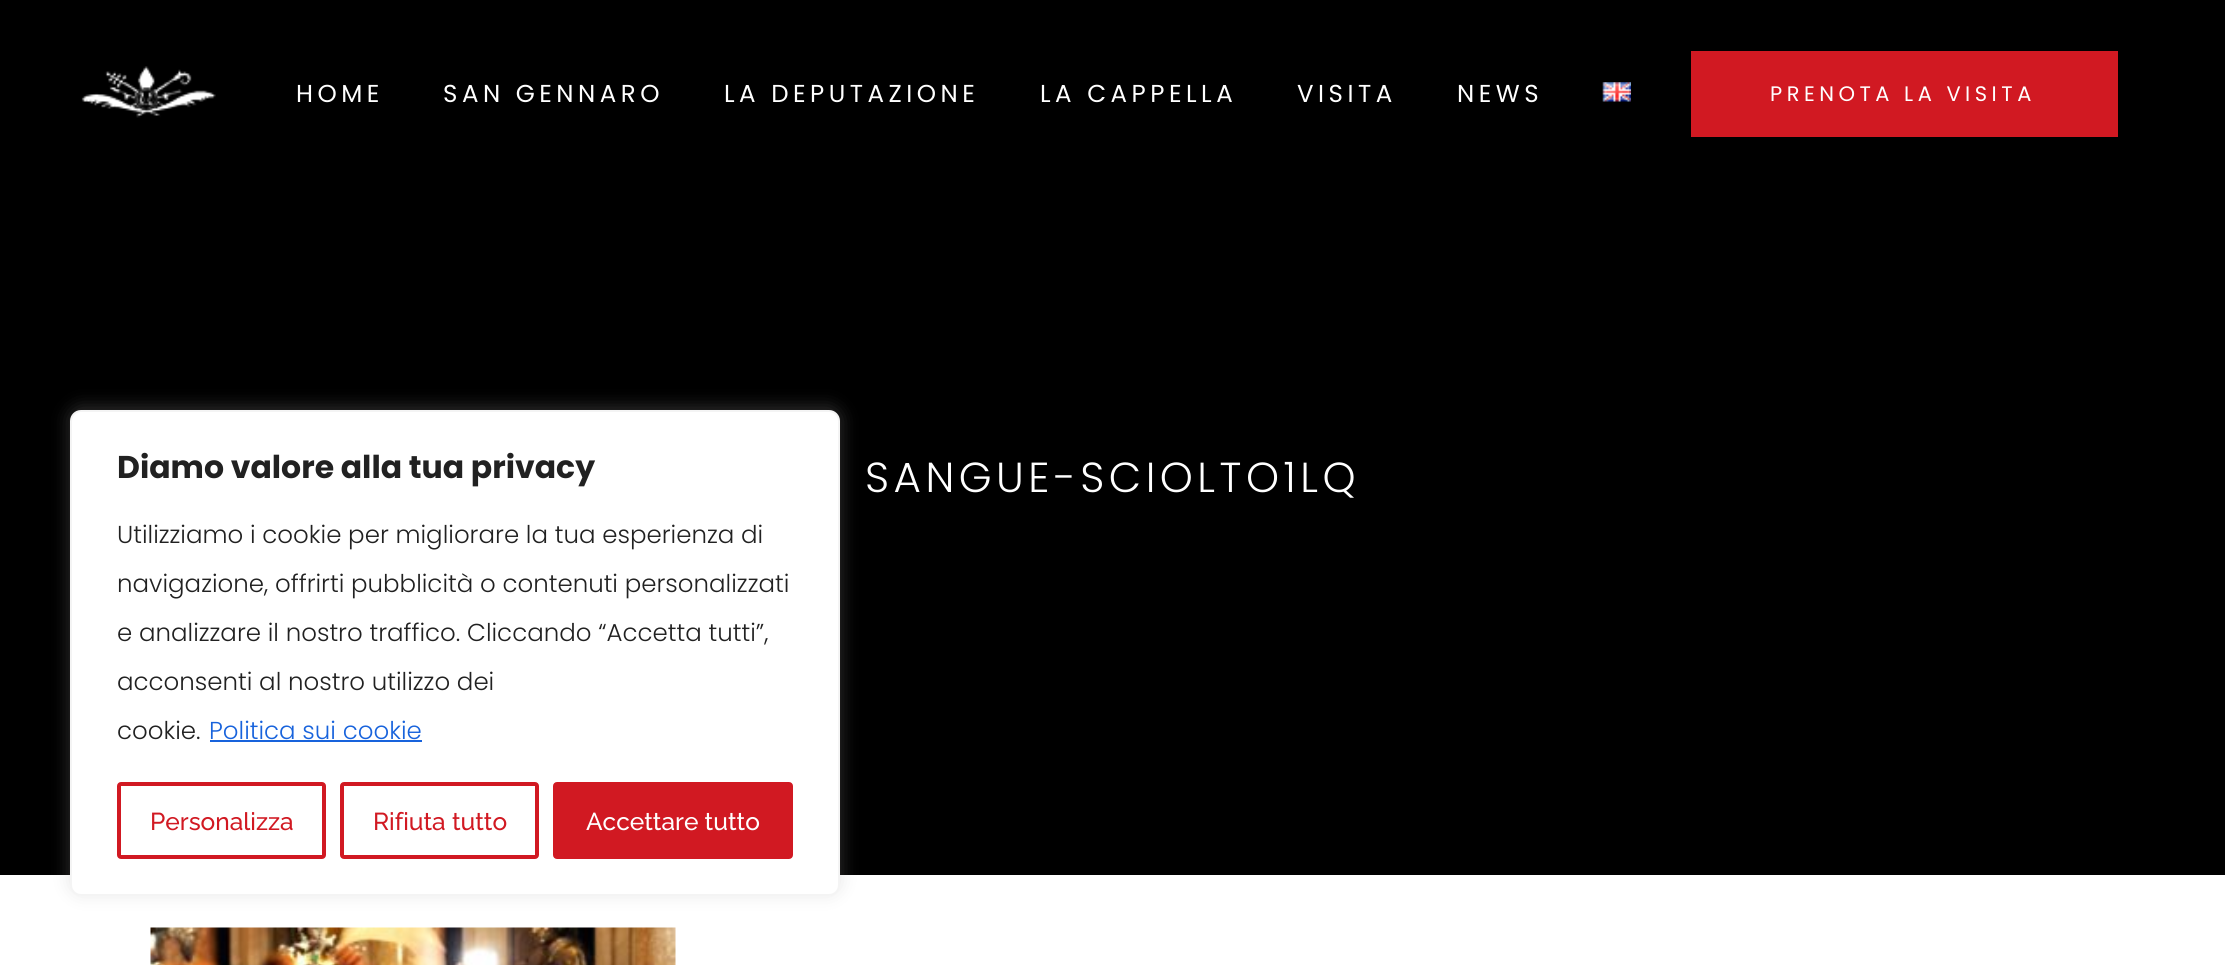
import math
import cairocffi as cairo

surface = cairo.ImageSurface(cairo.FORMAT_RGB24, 2225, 965)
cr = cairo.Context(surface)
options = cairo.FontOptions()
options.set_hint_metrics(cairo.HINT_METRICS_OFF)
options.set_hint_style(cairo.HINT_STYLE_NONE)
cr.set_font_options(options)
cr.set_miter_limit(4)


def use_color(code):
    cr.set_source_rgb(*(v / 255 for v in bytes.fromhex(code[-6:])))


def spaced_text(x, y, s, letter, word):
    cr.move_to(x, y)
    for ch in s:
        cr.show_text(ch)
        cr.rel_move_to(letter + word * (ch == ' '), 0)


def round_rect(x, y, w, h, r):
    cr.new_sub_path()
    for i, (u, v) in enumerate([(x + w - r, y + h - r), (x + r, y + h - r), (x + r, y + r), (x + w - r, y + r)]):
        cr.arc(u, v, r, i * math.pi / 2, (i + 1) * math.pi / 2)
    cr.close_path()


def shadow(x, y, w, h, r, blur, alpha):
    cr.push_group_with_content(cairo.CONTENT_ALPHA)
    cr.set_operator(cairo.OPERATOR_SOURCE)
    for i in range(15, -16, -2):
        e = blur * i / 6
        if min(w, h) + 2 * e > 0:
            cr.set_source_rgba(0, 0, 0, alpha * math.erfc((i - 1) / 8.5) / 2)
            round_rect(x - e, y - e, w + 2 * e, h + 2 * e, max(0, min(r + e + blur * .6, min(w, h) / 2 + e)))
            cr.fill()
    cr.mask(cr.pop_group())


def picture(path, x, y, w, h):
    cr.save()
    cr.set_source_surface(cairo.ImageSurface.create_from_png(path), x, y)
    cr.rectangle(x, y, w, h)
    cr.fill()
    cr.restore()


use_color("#ffffff")
cr.paint()
use_color("#000000")
cr.rectangle(0, 0, 2225, 875)
cr.fill()
picture("img1.png", 81, 66, 135, 52)
cr.select_font_face("Poppins")
cr.set_font_size(24.5)
use_color("#ffffff")
spaced_text(296, 102, "HOME", 4.5, 0)
spaced_text(443, 102, "SAN GENNARO", 4.5, 0)
spaced_text(724, 102, "LA DEPUTAZIONE", 4.5, 0)
spaced_text(1040, 102, "LA CAPPELLA", 4.5, 0)
spaced_text(1297, 102, "VISITA", 4.5, 0)
spaced_text(1457, 102, "NEWS", 4.5, 0)
picture("img2.png", 1602, 82, 29, 20)
use_color("#d11922")
cr.rectangle(1691, 51, 427, 86)
cr.fill()
cr.set_font_size(21)
use_color("#ffffff")
spaced_text(1770, 101, "PRENOTA LA VISITA", 4.5, 0)
cr.select_font_face("Poppins Light")
cr.set_font_size(42)
spaced_text(865, 492, "SANGUE-SCIOLTO1LQ", 4.5, 0)
picture("img3.png", 150, 927, 526, 38)
use_color("#acabab")
shadow(70, 408, 770, 486, 11, 9, 0.3)
use_color("#ffffff")
round_rect(71, 411, 768, 484, 10)
cr.fill_preserve()
use_color("#f4f4f4")
cr.stroke()
cr.select_font_face("Poppins", cairo.FONT_SLANT_NORMAL, cairo.FONT_WEIGHT_BOLD)
cr.set_font_size(31.5)
use_color("#212121")
cr.move_to(117, 478)
cr.show_text("Diamo valore alla tua privacy")
cr.select_font_face("Poppins Light")
cr.set_font_size(24.5)
cr.move_to(117, 543)
cr.show_text("Utilizziamo i cookie per migliorare la tua esperienza di")
cr.move_to(117, 592)
cr.show_text("navigazione, offrirti pubblicità o contenuti personalizzati")
cr.move_to(117, 641)
cr.show_text("e analizzare il nostro traffico. Cliccando “Accetta tutti”,")
cr.move_to(117, 690)
cr.show_text("acconsenti al nostro utilizzo dei")
cr.move_to(117, 739)
cr.show_text("cookie.")
use_color("#1863dc")
cr.move_to(209, 739)
cr.show_text("Politica sui cookie")
cr.rectangle(210, 740, 212, 2)
cr.fill()
round_rect(119, 784, 205, 73, 2)
use_color("#d11922")
cr.set_line_width(4)
cr.stroke()
cr.select_font_face("Raleway Medium")
cr.move_to(150, 830)
cr.show_text("Personalizza")
round_rect(342, 784, 195, 73, 2)
cr.stroke()
cr.move_to(373, 830)
cr.show_text("Rifiuta tutto")
round_rect(555, 784, 236, 73, 2)
cr.fill_preserve()
cr.stroke()
use_color("#ffffff")
cr.move_to(586, 830)
cr.show_text("Accettare tutto")
surface.write_to_png("result.png")
